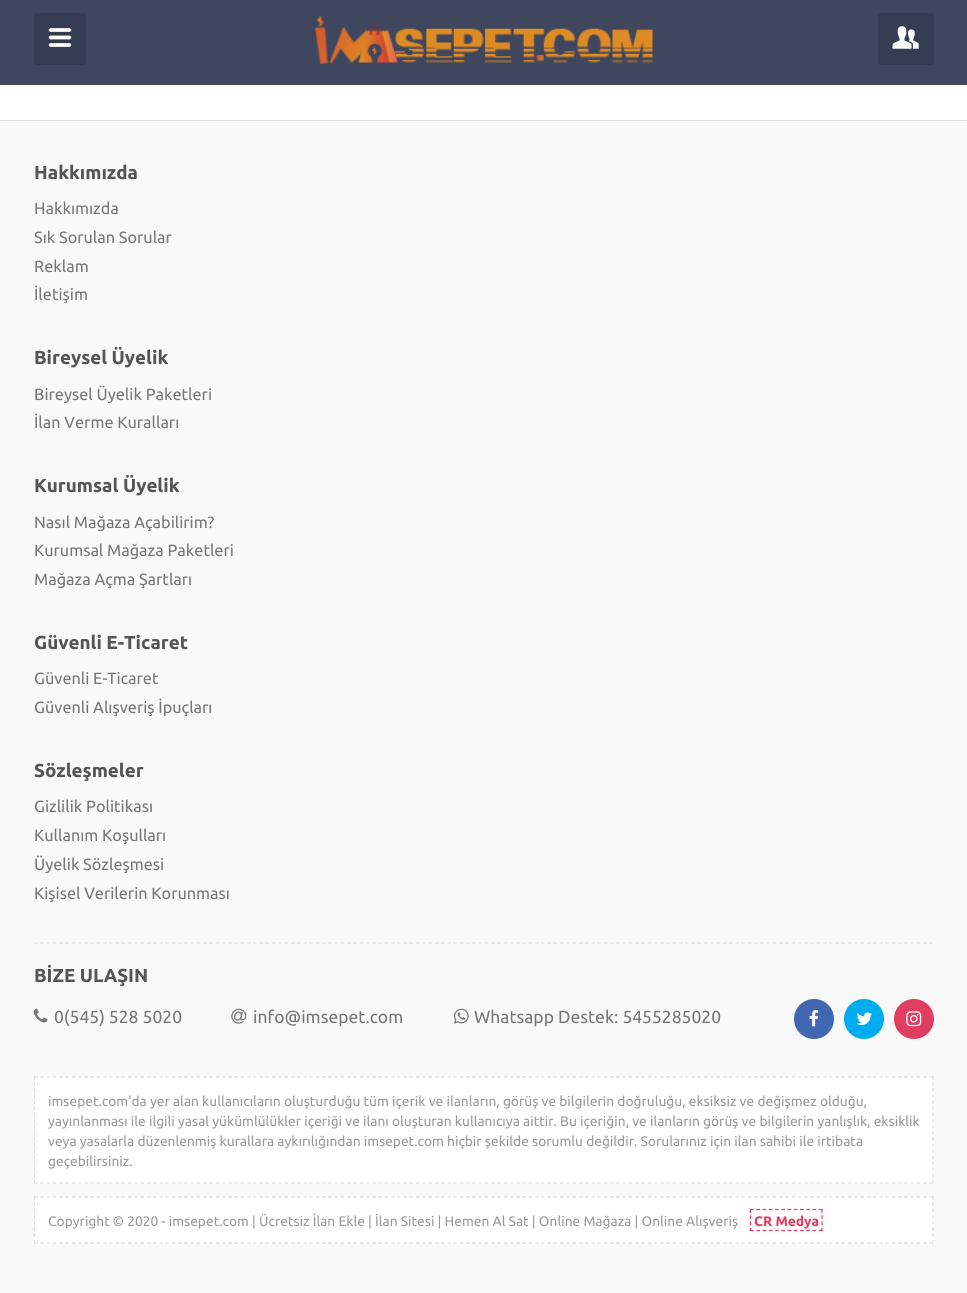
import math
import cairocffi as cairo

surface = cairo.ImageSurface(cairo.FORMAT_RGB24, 967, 1293)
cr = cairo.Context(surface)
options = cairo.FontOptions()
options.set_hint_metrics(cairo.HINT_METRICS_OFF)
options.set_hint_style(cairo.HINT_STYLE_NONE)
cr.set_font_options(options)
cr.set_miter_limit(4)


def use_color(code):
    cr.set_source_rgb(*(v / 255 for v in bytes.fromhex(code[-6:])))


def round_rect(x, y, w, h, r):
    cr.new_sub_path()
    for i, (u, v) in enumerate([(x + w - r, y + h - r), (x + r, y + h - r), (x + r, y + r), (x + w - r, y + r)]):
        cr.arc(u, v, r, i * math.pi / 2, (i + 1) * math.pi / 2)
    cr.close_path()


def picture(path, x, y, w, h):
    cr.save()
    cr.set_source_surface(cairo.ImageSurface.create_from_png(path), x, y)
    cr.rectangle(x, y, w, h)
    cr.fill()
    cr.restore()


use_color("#ffffff")
cr.paint()
use_color("#3f475f")
cr.rectangle(0, 0, 967, 85)
cr.fill()
use_color("#363c51")
round_rect(34, 13, 52, 52, 4)
cr.fill()
picture("img1.png", 48, 28, 24, 19)
picture("img2.png", 314, 16, 339, 48)
round_rect(878, 13, 56, 52, 4)
cr.fill()
picture("img3.png", 892, 26, 27, 23)
use_color("#f9f9f9")
cr.rectangle(0, 121, 967, 1172)
cr.fill()
use_color("#e0e0e0")
cr.rectangle(0, 120, 967, 1)
cr.fill()
cr.select_font_face("Ubuntu", cairo.FONT_SLANT_NORMAL, cairo.FONT_WEIGHT_BOLD)
cr.set_font_size(18.75)
use_color("#555555")
cr.move_to(34, 179)
cr.show_text("Hakkımızda")
cr.select_font_face("Ubuntu")
cr.set_font_size(16.25)
use_color("#777777")
cr.move_to(34, 214)
cr.show_text("Hakkımızda")
cr.move_to(34, 243)
cr.show_text("Sık Sorulan Sorular")
cr.move_to(34, 272)
cr.show_text("Reklam")
cr.move_to(34, 300)
cr.show_text("İletişim")
cr.select_font_face("Ubuntu", cairo.FONT_SLANT_NORMAL, cairo.FONT_WEIGHT_BOLD)
cr.set_font_size(18.75)
use_color("#555555")
cr.move_to(34, 364)
cr.show_text("Bireysel Üyelik")
cr.select_font_face("Ubuntu")
cr.set_font_size(16.25)
use_color("#777777")
cr.move_to(34, 400)
cr.show_text("Bireysel Üyelik Paketleri")
cr.move_to(34, 428)
cr.show_text("İlan Verme Kuralları")
cr.select_font_face("Ubuntu", cairo.FONT_SLANT_NORMAL, cairo.FONT_WEIGHT_BOLD)
cr.set_font_size(18.75)
use_color("#555555")
cr.move_to(34, 492)
cr.show_text("Kurumsal Üyelik")
cr.select_font_face("Ubuntu")
cr.set_font_size(16.25)
use_color("#777777")
cr.move_to(34, 528)
cr.show_text("Nasıl Mağaza Açabilirim?")
cr.move_to(34, 556)
cr.show_text("Kurumsal Mağaza Paketleri")
cr.move_to(34, 585)
cr.show_text("Mağaza Açma Şartları")
cr.select_font_face("Ubuntu", cairo.FONT_SLANT_NORMAL, cairo.FONT_WEIGHT_BOLD)
cr.set_font_size(18.75)
use_color("#555555")
cr.move_to(34, 649)
cr.show_text("Güvenli E-Ticaret")
cr.select_font_face("Ubuntu")
cr.set_font_size(16.25)
use_color("#777777")
cr.move_to(34, 684)
cr.show_text("Güvenli E-Ticaret")
cr.move_to(34, 713)
cr.show_text("Güvenli Alışveriş İpuçları")
cr.select_font_face("Ubuntu", cairo.FONT_SLANT_NORMAL, cairo.FONT_WEIGHT_BOLD)
cr.set_font_size(18.75)
use_color("#555555")
cr.move_to(34, 777)
cr.show_text("Sözleşmeler")
cr.select_font_face("Ubuntu")
cr.set_font_size(16.25)
use_color("#777777")
cr.move_to(34, 812)
cr.show_text("Gizlilik Politikası")
cr.move_to(34, 841)
cr.show_text("Kullanım Koşulları")
cr.move_to(34, 870)
cr.show_text("Üyelik Sözleşmesi")
cr.move_to(34, 899)
cr.show_text("Kişisel Verilerin Korunması")
cr.new_path()
cr.move_to(34, 943)
cr.line_to(934, 943)
use_color("#dddddd")
cr.set_line_width(1.2)
cr.set_dash([3.75, 2.51])
cr.stroke()
cr.select_font_face("Ubuntu", cairo.FONT_SLANT_NORMAL, cairo.FONT_WEIGHT_BOLD)
cr.set_font_size(18.75)
use_color("#555555")
cr.move_to(34, 982)
cr.show_text("BİZE ULAŞIN")
picture("img4.png", 33, 1008, 15, 15)
cr.select_font_face("Ubuntu")
cr.set_font_size(17.5)
use_color("#777777")
cr.move_to(54, 1023)
cr.show_text("0(545) 528 5020")
picture("img5.png", 231, 1008, 16, 16)
cr.move_to(253, 1023)
cr.show_text("info@imsepet.com")
picture("img6.png", 453, 1008, 16, 16)
cr.move_to(474, 1023)
cr.show_text("Whatsapp Destek: 5455285020")
use_color("#4267b2")
cr.new_path()
cr.arc(814, 1019, 20, 0, 2 * math.pi)
cr.fill()
picture("img7.png", 809, 1010, 10, 17)
use_color("#00aced")
cr.arc(864, 1019, 20, 0, 2 * math.pi)
cr.fill()
picture("img8.png", 856, 1012, 16, 13)
use_color("#e13d61")
cr.arc(914, 1019, 20, 0, 2 * math.pi)
cr.fill()
picture("img9.png", 906, 1011, 16, 16)
use_color("#ffffff")
cr.rectangle(34, 1076, 900, 108)
cr.fill()
cr.new_path()
cr.move_to(34, 1077)
cr.line_to(934, 1077)
use_color("#dddddd")
cr.stroke()
cr.new_path()
cr.move_to(933, 1076)
cr.line_to(933, 1184)
cr.set_dash([3.75, 2.35])
cr.stroke()
cr.new_path()
cr.move_to(34, 1183)
cr.line_to(934, 1183)
cr.set_dash([3.75, 2.51])
cr.stroke()
cr.new_path()
cr.move_to(34.5, 1076)
cr.line_to(34.5, 1184)
cr.set_dash([3.75, 2.35])
cr.stroke()
cr.set_font_size(13.75)
use_color("#999999")
cr.move_to(48, 1106)
cr.show_text("imsepet.com'da yer alan kullanıcıların oluşturduğu tüm içerik ve ilanların, görüş ve bilgilerin doğruluğu, eksiksiz ve değişmez olduğu,")
cr.move_to(48, 1126)
cr.show_text("yayınlanması ile ilgili yasal yükümlülükler içeriği ve ilanı oluşturan kullanıcıya aittir. Bu içeriğin, ve ilanların görüş ve bilgilerin yanlışlık, eksiklik")
cr.move_to(48, 1146)
cr.show_text("veya yasalarla düzenlenmiş kurallara aykırılığından imsepet.com hiçbir şekilde sorumlu değildir. Sorularınız için ilan sahibi ile irtibata")
cr.move_to(48, 1166)
cr.show_text("geçebilirsiniz.")
use_color("#ffffff")
cr.rectangle(34, 1196, 900, 48)
cr.fill()
cr.new_path()
cr.move_to(34, 1197)
cr.line_to(934, 1197)
use_color("#dddddd")
cr.set_dash([3.75, 2.51])
cr.stroke()
cr.new_path()
cr.move_to(933, 1196)
cr.line_to(933, 1244)
cr.set_dash([3.75, 2.5])
cr.stroke()
cr.new_path()
cr.move_to(34, 1243)
cr.line_to(934, 1243)
cr.set_dash([3.75, 2.51])
cr.stroke()
cr.new_path()
cr.move_to(34.5, 1196)
cr.line_to(34.5, 1244)
cr.set_dash([3.75, 2.5])
cr.stroke()
use_color("#999999")
cr.move_to(48, 1226)
cr.show_text("Copyright © 2020 - imsepet.com | Ücretsiz İlan Ekle | İlan Sitesi | Hemen Al Sat | Online Mağaza | Online Alışveriş")
cr.select_font_face("Ubuntu", cairo.FONT_SLANT_NORMAL, cairo.FONT_WEIGHT_BOLD)
use_color("#e13d61")
cr.move_to(754, 1226)
cr.show_text("CR Medya")
cr.new_path()
cr.move_to(750, 1209.5)
cr.line_to(822.5, 1209.5)
cr.stroke()
cr.new_path()
cr.move_to(822, 1209)
cr.line_to(822, 1231)
cr.stroke()
cr.new_path()
cr.move_to(750, 1230.5)
cr.line_to(822.5, 1230.5)
cr.stroke()
cr.new_path()
cr.move_to(750.5, 1209)
cr.line_to(750.5, 1231)
cr.stroke()
surface.write_to_png("result.png")
